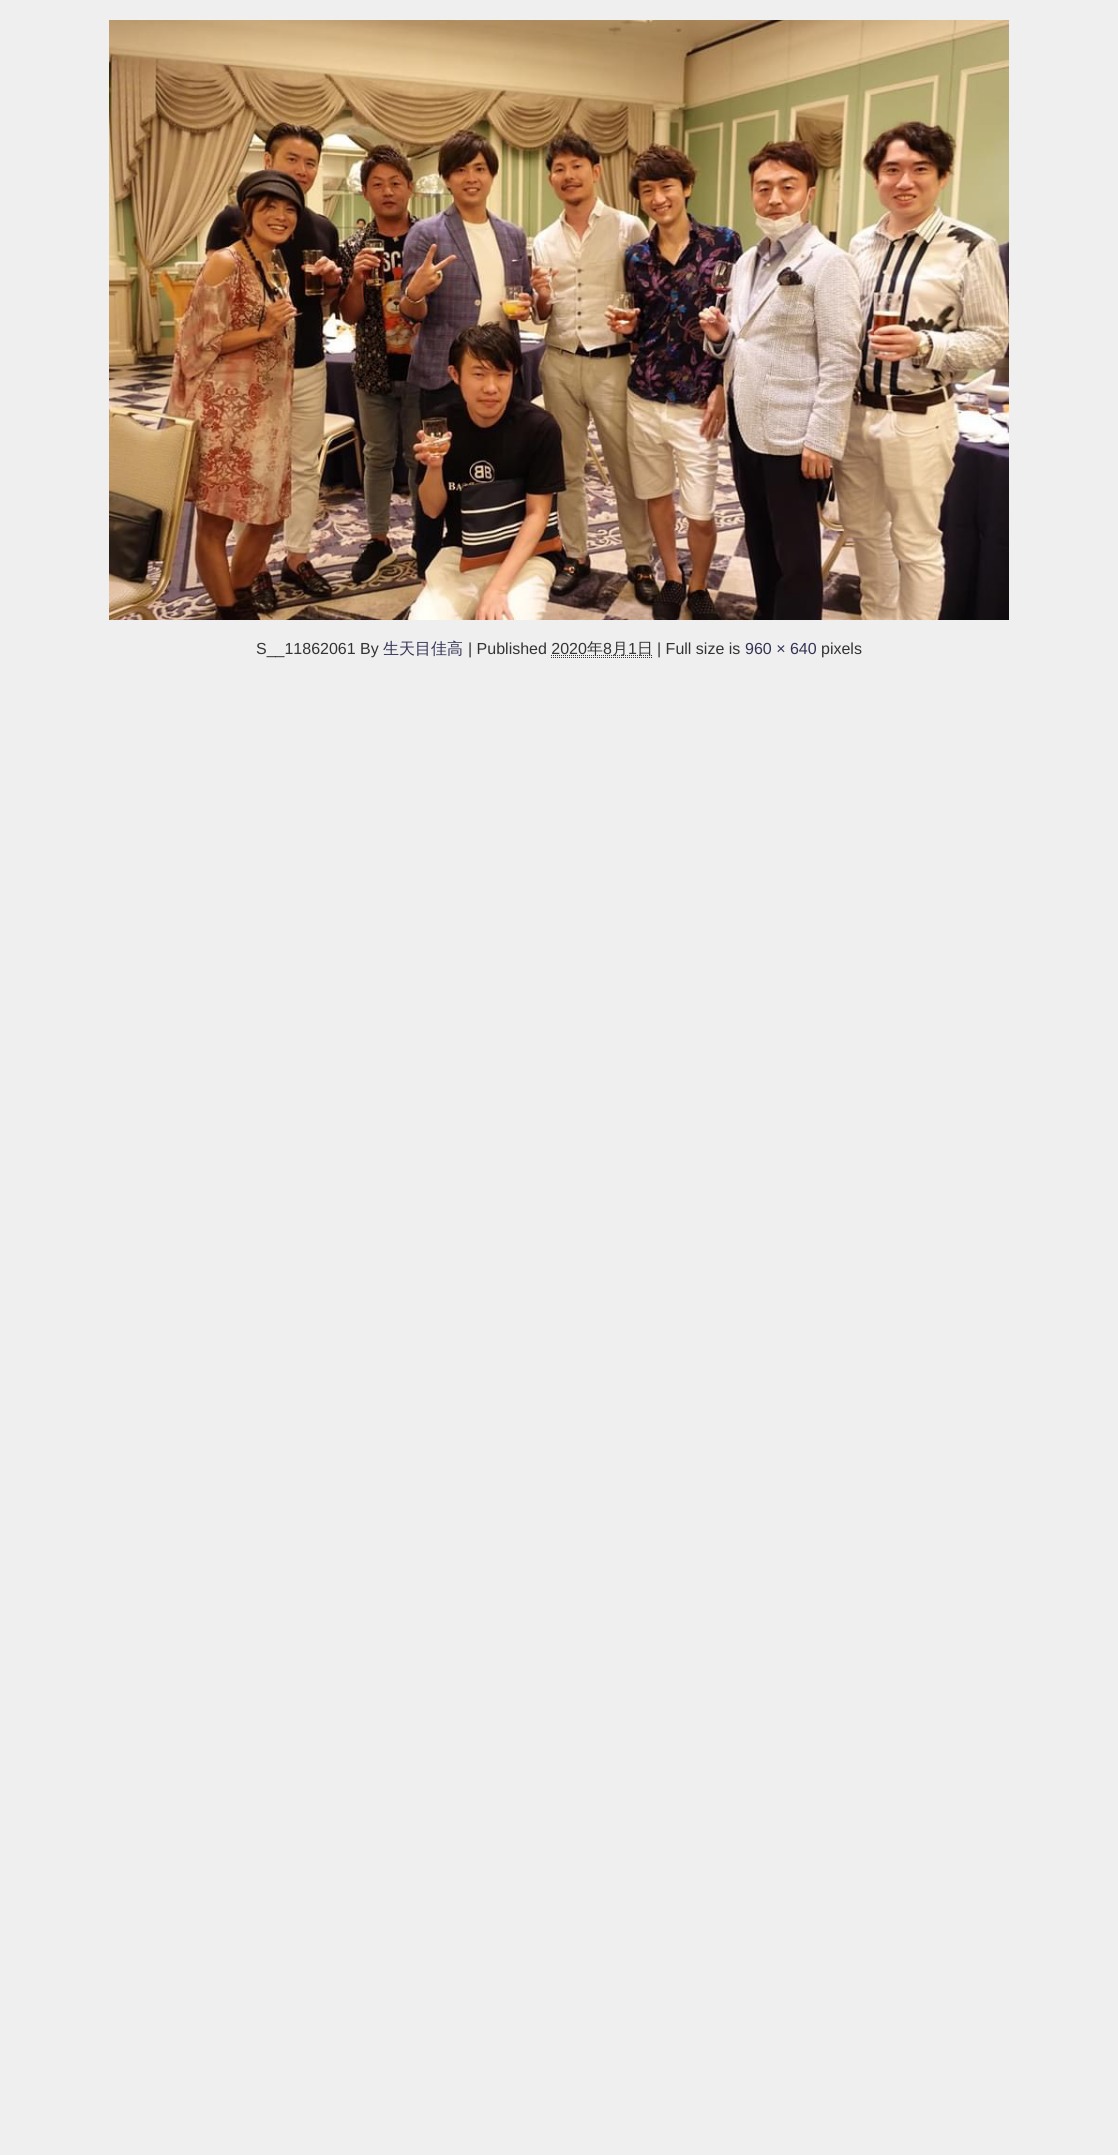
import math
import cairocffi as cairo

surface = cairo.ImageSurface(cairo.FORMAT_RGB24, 1118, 2155)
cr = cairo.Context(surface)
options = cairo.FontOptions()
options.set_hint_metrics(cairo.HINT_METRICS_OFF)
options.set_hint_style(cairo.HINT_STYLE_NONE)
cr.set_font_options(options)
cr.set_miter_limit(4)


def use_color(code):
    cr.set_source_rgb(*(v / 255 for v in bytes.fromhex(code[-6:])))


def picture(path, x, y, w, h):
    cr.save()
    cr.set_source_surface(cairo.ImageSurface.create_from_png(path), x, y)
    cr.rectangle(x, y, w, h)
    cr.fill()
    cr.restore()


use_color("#efefef")
cr.paint()
picture("img1.png", 109, 20, 900, 600)
cr.select_font_face("Liberation Sans")
cr.set_font_size(16)
use_color("#333333")
cr.move_to(256, 654)
cr.show_text("S__11862061 By")
cr.select_font_face("WenQuanYi Zen Hei Medium")
use_color("#333355")
cr.move_to(383, 654)
cr.show_text("生天目佳高")
cr.select_font_face("Liberation Sans")
use_color("#333333")
cr.move_to(468, 654)
cr.show_text("| Published 2020")
cr.new_path()
cr.move_to(551, 655.5)
cr.line_to(652.5, 655.5)
cr.set_line_width(1)
cr.set_dash([1, 1])
cr.stroke()
cr.select_font_face("WenQuanYi Zen Hei Medium")
cr.move_to(587, 654)
cr.show_text("年")
cr.select_font_face("Liberation Sans")
cr.move_to(603, 654)
cr.show_text("8")
cr.select_font_face("WenQuanYi Zen Hei Medium")
cr.move_to(612, 654)
cr.show_text("月")
cr.new_path()
cr.move_to(551, 657.5)
cr.line_to(653, 657.5)
cr.stroke()
cr.select_font_face("Liberation Sans")
cr.move_to(628, 654)
cr.show_text("1")
cr.select_font_face("WenQuanYi Zen Hei Medium")
cr.move_to(637, 654)
cr.show_text("日")
cr.select_font_face("Liberation Sans")
cr.move_to(657, 654)
cr.show_text("| Full size is")
use_color("#333355")
cr.move_to(745, 654)
cr.show_text("960 × 640")
use_color("#333333")
cr.move_to(821, 654)
cr.show_text("pixels")
surface.write_to_png("result.png")
